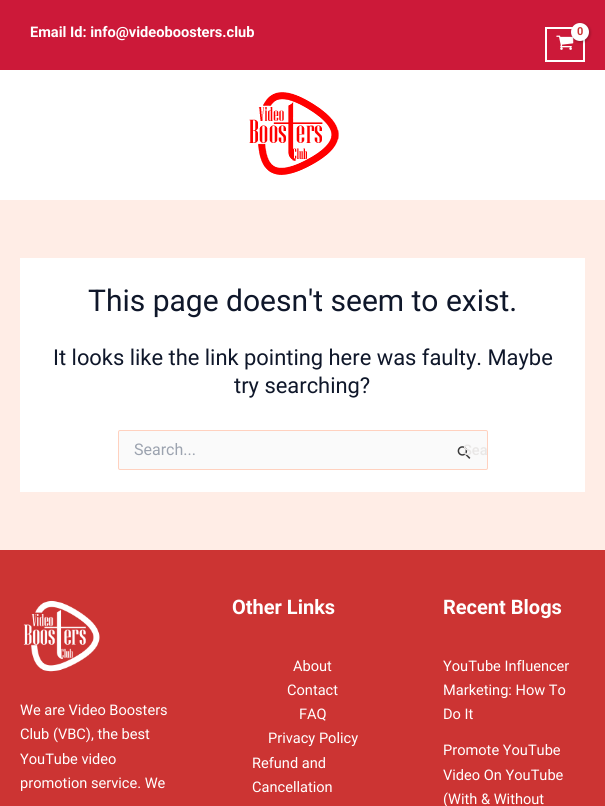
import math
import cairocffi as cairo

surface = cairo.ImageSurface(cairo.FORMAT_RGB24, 605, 806)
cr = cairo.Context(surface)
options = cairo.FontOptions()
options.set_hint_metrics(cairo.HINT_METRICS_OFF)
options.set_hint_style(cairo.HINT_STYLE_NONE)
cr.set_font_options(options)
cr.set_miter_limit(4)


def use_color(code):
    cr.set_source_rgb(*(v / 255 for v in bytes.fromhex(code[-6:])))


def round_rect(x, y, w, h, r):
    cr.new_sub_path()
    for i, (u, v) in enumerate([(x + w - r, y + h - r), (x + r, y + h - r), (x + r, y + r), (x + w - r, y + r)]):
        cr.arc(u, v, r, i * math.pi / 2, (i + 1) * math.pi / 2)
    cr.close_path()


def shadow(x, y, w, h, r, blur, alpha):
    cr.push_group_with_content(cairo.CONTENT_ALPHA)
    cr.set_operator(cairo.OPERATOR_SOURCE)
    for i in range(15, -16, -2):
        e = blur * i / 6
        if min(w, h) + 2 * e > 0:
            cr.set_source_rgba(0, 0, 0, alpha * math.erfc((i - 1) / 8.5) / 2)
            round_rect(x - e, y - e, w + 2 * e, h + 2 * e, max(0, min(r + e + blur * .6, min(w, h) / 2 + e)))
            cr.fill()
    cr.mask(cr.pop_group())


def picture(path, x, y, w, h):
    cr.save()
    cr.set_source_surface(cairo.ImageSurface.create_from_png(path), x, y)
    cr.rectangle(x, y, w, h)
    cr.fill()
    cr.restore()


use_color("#ffede6")
cr.paint()
use_color("#cc1939")
cr.rectangle(0, 0, 605, 70)
cr.fill()
use_color("#ffffff")
cr.rectangle(0, 70, 605, 130)
cr.fill()
cr.select_font_face("Roboto", cairo.FONT_SLANT_NORMAL, cairo.FONT_WEIGHT_BOLD)
cr.set_font_size(14.6)
cr.move_to(30, 37)
cr.show_text("Email Id: info@videoboosters.club")
cr.rectangle(546, 28, 38, 33)
cr.stroke()
picture("img1.png", 556, 35, 18, 15)
use_color("#000000")
shadow(572, 24, 18, 18, 9, 1.5, 0.3)
use_color("#ffffff")
cr.arc(580, 32, 9, 0, 2 * math.pi)
cr.fill()
cr.set_font_size(11)
use_color("#cc3433")
cr.move_to(577, 35)
cr.show_text("0")
picture("img2.png", 249, 92, 90, 83)
use_color("#ffffff")
cr.rectangle(20, 258, 565, 234)
cr.fill()
cr.select_font_face("Roboto")
cr.set_font_size(30)
use_color("#0f172a")
cr.move_to(88, 311)
cr.show_text("This page doesn't seem to exist.")
cr.set_font_size(21.9)
cr.move_to(53, 365)
cr.show_text("It looks like the link pointing here was faulty. Maybe")
cr.move_to(234, 393)
cr.show_text("try searching?")
use_color("#fafafa")
round_rect(118.5, 430.5, 369, 39, 1.5)
cr.fill_preserve()
use_color("#ffd1bf")
cr.set_line_width(1)
cr.stroke()
cr.set_font_size(16)
use_color("#9ca3af")
cr.move_to(134, 455)
cr.show_text("Search...")
picture("img3.png", 457, 446, 14, 13)
cr.select_font_face("Roboto Medium")
cr.set_font_size(14.6)
use_color("#e9e7e6")
cr.move_to(463, 455)
cr.show_text("Sea")
use_color("#cc3433")
cr.rectangle(0, 550, 605, 256)
cr.fill()
picture("img4.png", 23, 600, 77, 72)
cr.select_font_face("Roboto")
use_color("#ffffff")
cr.move_to(20, 715)
cr.show_text("We are Video Boosters")
cr.move_to(20, 739)
cr.show_text("Club (VBC), the best")
cr.move_to(20, 764)
cr.show_text("YouTube video")
cr.move_to(20, 788)
cr.show_text("promotion service. We")
cr.select_font_face("Roboto", cairo.FONT_SLANT_NORMAL, cairo.FONT_WEIGHT_BOLD)
cr.set_font_size(20)
cr.move_to(232, 614)
cr.show_text("Other Links")
cr.select_font_face("Roboto")
cr.set_font_size(14.6)
cr.move_to(293, 671)
cr.show_text("About")
cr.move_to(287, 695)
cr.show_text("Contact")
cr.move_to(299, 719)
cr.show_text("FAQ")
cr.move_to(268, 743)
cr.show_text("Privacy Policy")
cr.move_to(252, 768)
cr.show_text("Refund and")
cr.move_to(252, 792)
cr.show_text("Cancellation")
cr.select_font_face("Roboto", cairo.FONT_SLANT_NORMAL, cairo.FONT_WEIGHT_BOLD)
cr.set_font_size(20)
cr.move_to(443, 614)
cr.show_text("Recent Blogs")
cr.select_font_face("Roboto")
cr.set_font_size(14.6)
cr.move_to(443, 671)
cr.show_text("YouTube Influencer")
cr.move_to(443, 695)
cr.show_text("Marketing: How To")
cr.move_to(443, 719)
cr.show_text("Do It")
cr.move_to(443, 755)
cr.show_text("Promote YouTube")
cr.move_to(443, 780)
cr.show_text("Video On YouTube")
cr.move_to(443, 804)
cr.show_text("(With & Without")
surface.write_to_png("result.png")
